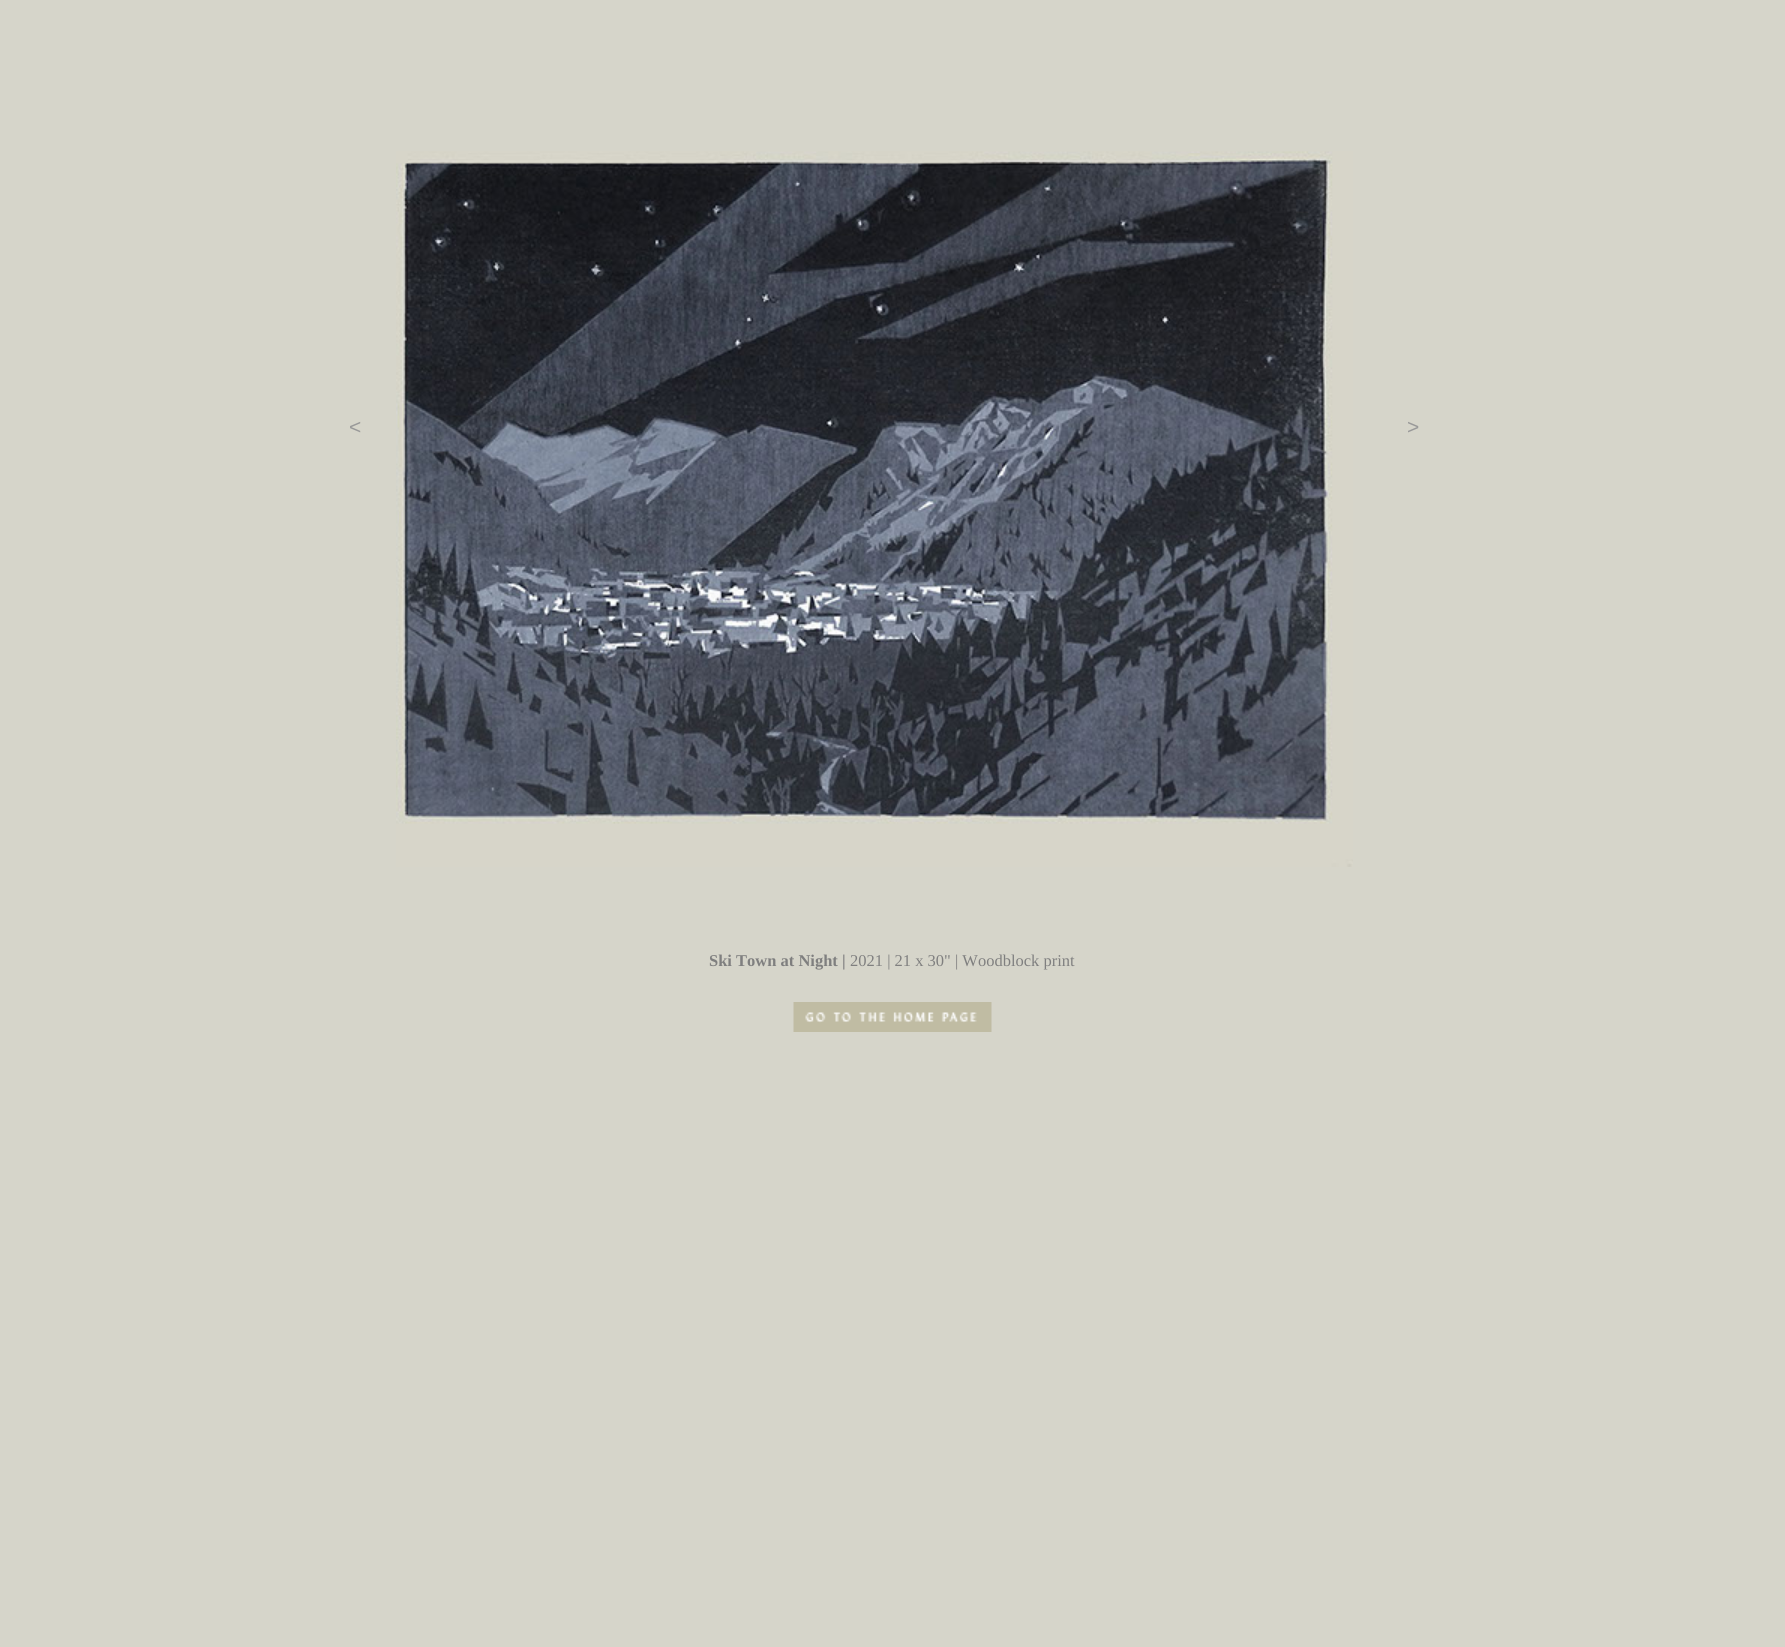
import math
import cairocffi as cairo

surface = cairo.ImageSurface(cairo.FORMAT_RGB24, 1785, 1647)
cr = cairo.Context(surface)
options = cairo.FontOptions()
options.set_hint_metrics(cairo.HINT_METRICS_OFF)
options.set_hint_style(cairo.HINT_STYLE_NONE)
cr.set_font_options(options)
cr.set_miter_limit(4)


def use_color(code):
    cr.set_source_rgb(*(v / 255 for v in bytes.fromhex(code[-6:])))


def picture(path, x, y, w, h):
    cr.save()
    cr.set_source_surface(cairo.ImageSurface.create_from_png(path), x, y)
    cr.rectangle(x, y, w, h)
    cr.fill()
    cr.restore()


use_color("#d6d5ca")
cr.paint()
cr.select_font_face("Liberation Sans")
cr.set_font_size(21)
use_color("#999999")
cr.move_to(349, 434)
cr.show_text("<")
picture("img1.png", 396, 151, 957, 716)
cr.select_font_face("Liberation Serif", cairo.FONT_SLANT_NORMAL, cairo.FONT_WEIGHT_BOLD)
cr.set_font_size(16.5)
use_color("#7f7f7f")
cr.move_to(709, 966)
cr.show_text("Ski Town at Night |")
cr.select_font_face("Liberation Serif")
cr.move_to(850, 966)
cr.show_text("2021 | 21 x 30\" | Woodblock print")
cr.select_font_face("Liberation Sans")
cr.set_font_size(21)
use_color("#999999")
cr.move_to(1407, 434)
cr.show_text(">")
picture("img2.png", 793, 1002, 199, 30)
surface.write_to_png("result.png")
